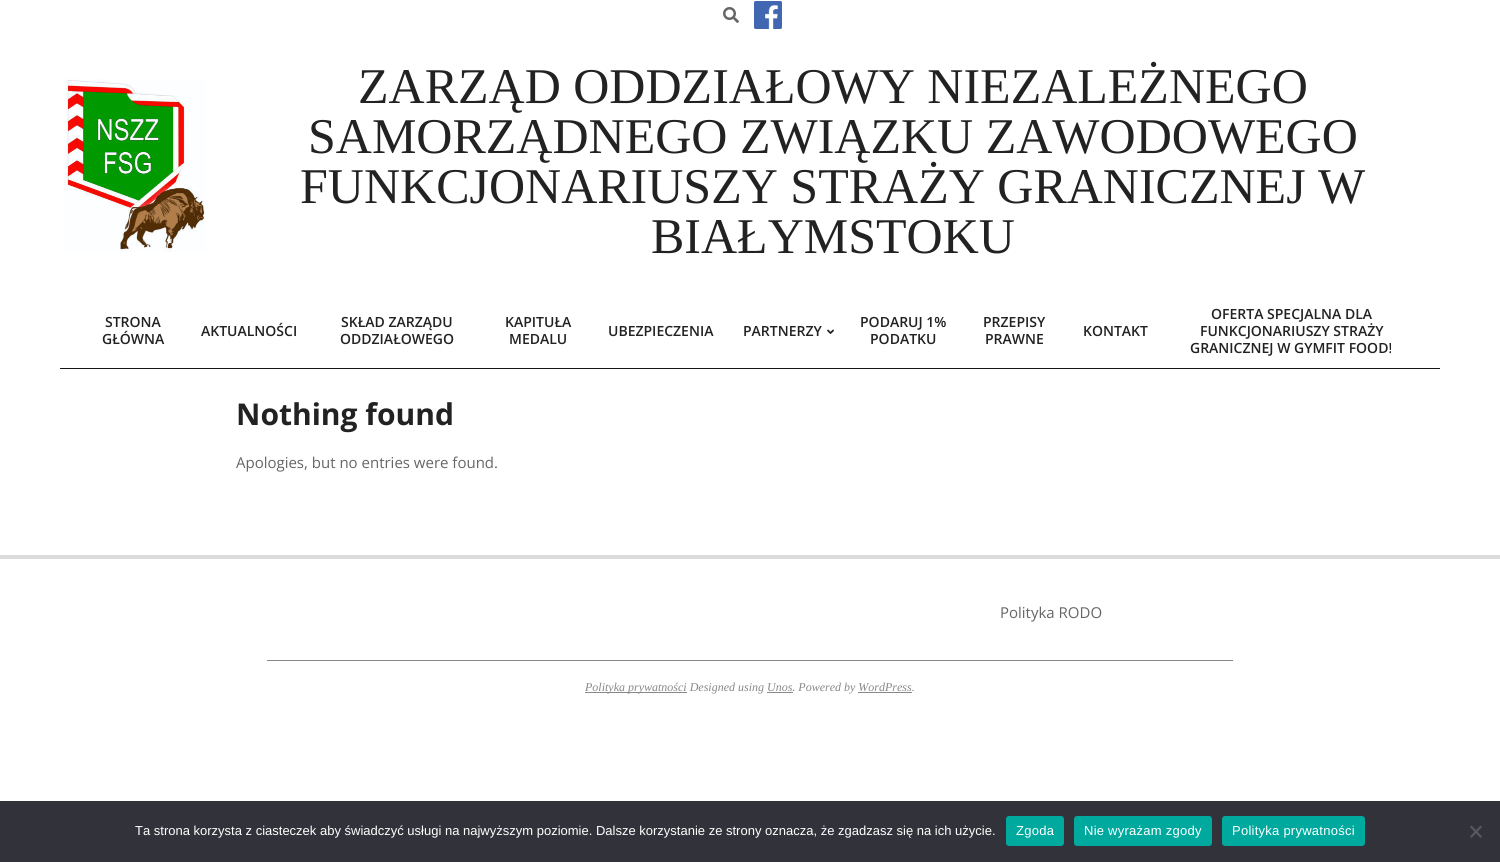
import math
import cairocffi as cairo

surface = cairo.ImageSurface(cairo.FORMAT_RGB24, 1500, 862)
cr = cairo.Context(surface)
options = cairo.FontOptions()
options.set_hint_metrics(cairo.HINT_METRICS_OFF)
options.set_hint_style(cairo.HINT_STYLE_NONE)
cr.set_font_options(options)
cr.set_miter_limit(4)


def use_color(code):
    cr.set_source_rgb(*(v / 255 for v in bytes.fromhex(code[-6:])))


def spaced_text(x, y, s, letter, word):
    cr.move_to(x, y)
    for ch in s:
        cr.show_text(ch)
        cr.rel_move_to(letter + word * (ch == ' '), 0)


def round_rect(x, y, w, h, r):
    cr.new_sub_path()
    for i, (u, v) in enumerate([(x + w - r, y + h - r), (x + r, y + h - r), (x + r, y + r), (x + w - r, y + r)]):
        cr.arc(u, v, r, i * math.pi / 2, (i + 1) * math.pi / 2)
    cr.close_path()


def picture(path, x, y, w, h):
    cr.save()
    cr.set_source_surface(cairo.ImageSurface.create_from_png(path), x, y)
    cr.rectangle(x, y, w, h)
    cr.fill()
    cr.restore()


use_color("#ffffff")
cr.paint()
picture("img1.png", 723, 7, 16, 16)
picture("img2.png", 754, 1, 28, 28)
picture("img3.png", 65, 79, 141, 173)
cr.select_font_face("Liberation Serif")
cr.set_font_size(50)
use_color("#222222")
cr.move_to(358, 103)
cr.show_text("ZARZĄD ODDZIAŁOWY NIEZALEŻNEGO")
cr.move_to(308, 153)
cr.show_text("SAMORZĄDNEGO ZWIĄZKU ZAWODOWEGO")
cr.move_to(300, 203)
cr.show_text("FUNKCJONARIUSZY STRAŻY GRANICZNEJ W")
cr.move_to(651, 253)
cr.show_text("BIAŁYMSTOKU")
use_color("#161616")
cr.rectangle(60, 368, 1380, 1)
cr.fill()
cr.select_font_face("Open Sans SemiBold")
cr.set_font_size(14)
use_color("#222222")
cr.move_to(105, 327)
cr.show_text("STRONA")
cr.move_to(102, 344)
cr.show_text("GŁÓWNA")
cr.move_to(201, 336)
cr.show_text("AKTUALNOŚCI")
cr.move_to(341, 327)
cr.show_text("SKŁAD ZARZĄDU")
cr.move_to(340, 344)
cr.show_text("ODDZIAŁOWEGO")
cr.move_to(505, 327)
cr.show_text("KAPITUŁA")
cr.move_to(509, 344)
cr.show_text("MEDALU")
cr.move_to(608, 336)
cr.show_text("UBEZPIECZENIA")
cr.move_to(743, 336)
cr.show_text("PARTNERZY")
picture("img4.png", 827, 329, 7, 5)
cr.move_to(860, 327)
cr.show_text("PODARUJ 1%")
cr.move_to(870, 344)
cr.show_text("PODATKU")
cr.move_to(983, 327)
cr.show_text("PRZEPISY")
cr.move_to(985, 344)
cr.show_text("PRAWNE")
cr.move_to(1083, 336)
cr.show_text("KONTAKT")
cr.move_to(1211, 319)
cr.show_text("OFERTA SPECJALNA DLA")
cr.move_to(1200, 336)
cr.show_text("FUNKCJONARIUSZY STRAŻY")
cr.move_to(1190, 353)
cr.show_text("GRANICZNEJ W GYMFIT FOOD!")
cr.select_font_face("Open Sans", cairo.FONT_SLANT_NORMAL, cairo.FONT_WEIGHT_BOLD)
cr.set_font_size(30)
cr.move_to(236, 425)
cr.show_text("Nothing found")
cr.select_font_face("Open Sans")
cr.set_font_size(15)
use_color("#666666")
cr.move_to(236, 468)
cr.show_text("Apologies, but no entries were found.")
use_color("#dbdbdb")
cr.rectangle(0, 555, 1500, 4)
cr.fill()
use_color("#666666")
cr.move_to(1000, 618)
cr.show_text("Polityka RODO")
use_color("#888888")
cr.rectangle(267, 660, 966, 1)
cr.fill()
cr.rectangle(585, 692, 102, 1)
cr.fill()
cr.select_font_face("Liberation Serif", cairo.FONT_SLANT_ITALIC)
cr.set_font_size(12)
cr.move_to(585, 691)
cr.show_text("Polityka prywatności Designed using Unos. Powered by WordPress.")
cr.rectangle(767, 692, 26, 1)
cr.fill()
cr.rectangle(858, 692, 54, 1)
cr.fill()
use_color("#32323a")
cr.rectangle(0, 801, 1500, 61)
cr.fill()
cr.select_font_face("Liberation Sans")
cr.set_font_size(13)
use_color("#ffffff")
cr.move_to(135, 835)
cr.show_text("Ta strona korzysta z ciasteczek aby świadczyć usługi na najwyższym poziomie. Dalsze korzystanie ze strony oznacza, że zgadzasz się na ich użycie.")
use_color("#00a99d")
round_rect(1006, 816, 58, 30, 3)
cr.fill()
use_color("#ffffff")
spaced_text(1016, 835, "Zgoda", 0.25, 0)
use_color("#00a99d")
round_rect(1074, 816, 138, 30, 3)
cr.fill()
use_color("#ffffff")
spaced_text(1084, 835, "Nie wyrażam zgody", 0.25, 0)
use_color("#00a99d")
round_rect(1222, 816, 143, 30, 3)
cr.fill()
use_color("#ffffff")
spaced_text(1232, 835, "Polityka prywatności", 0.25, 0)
use_color("#59595d")
cr.new_path()
cr.move_to(1480.5, 825.5)
cr.line_to(1482, 827)
cr.line_to(1471.5, 838)
cr.line_to(1470, 836.5)
cr.close_path()
cr.fill()
cr.new_path()
cr.move_to(1470, 827)
cr.line_to(1471.5, 825.5)
cr.line_to(1482, 836.5)
cr.line_to(1480.5, 838)
cr.close_path()
cr.fill()
surface.write_to_png("result.png")
